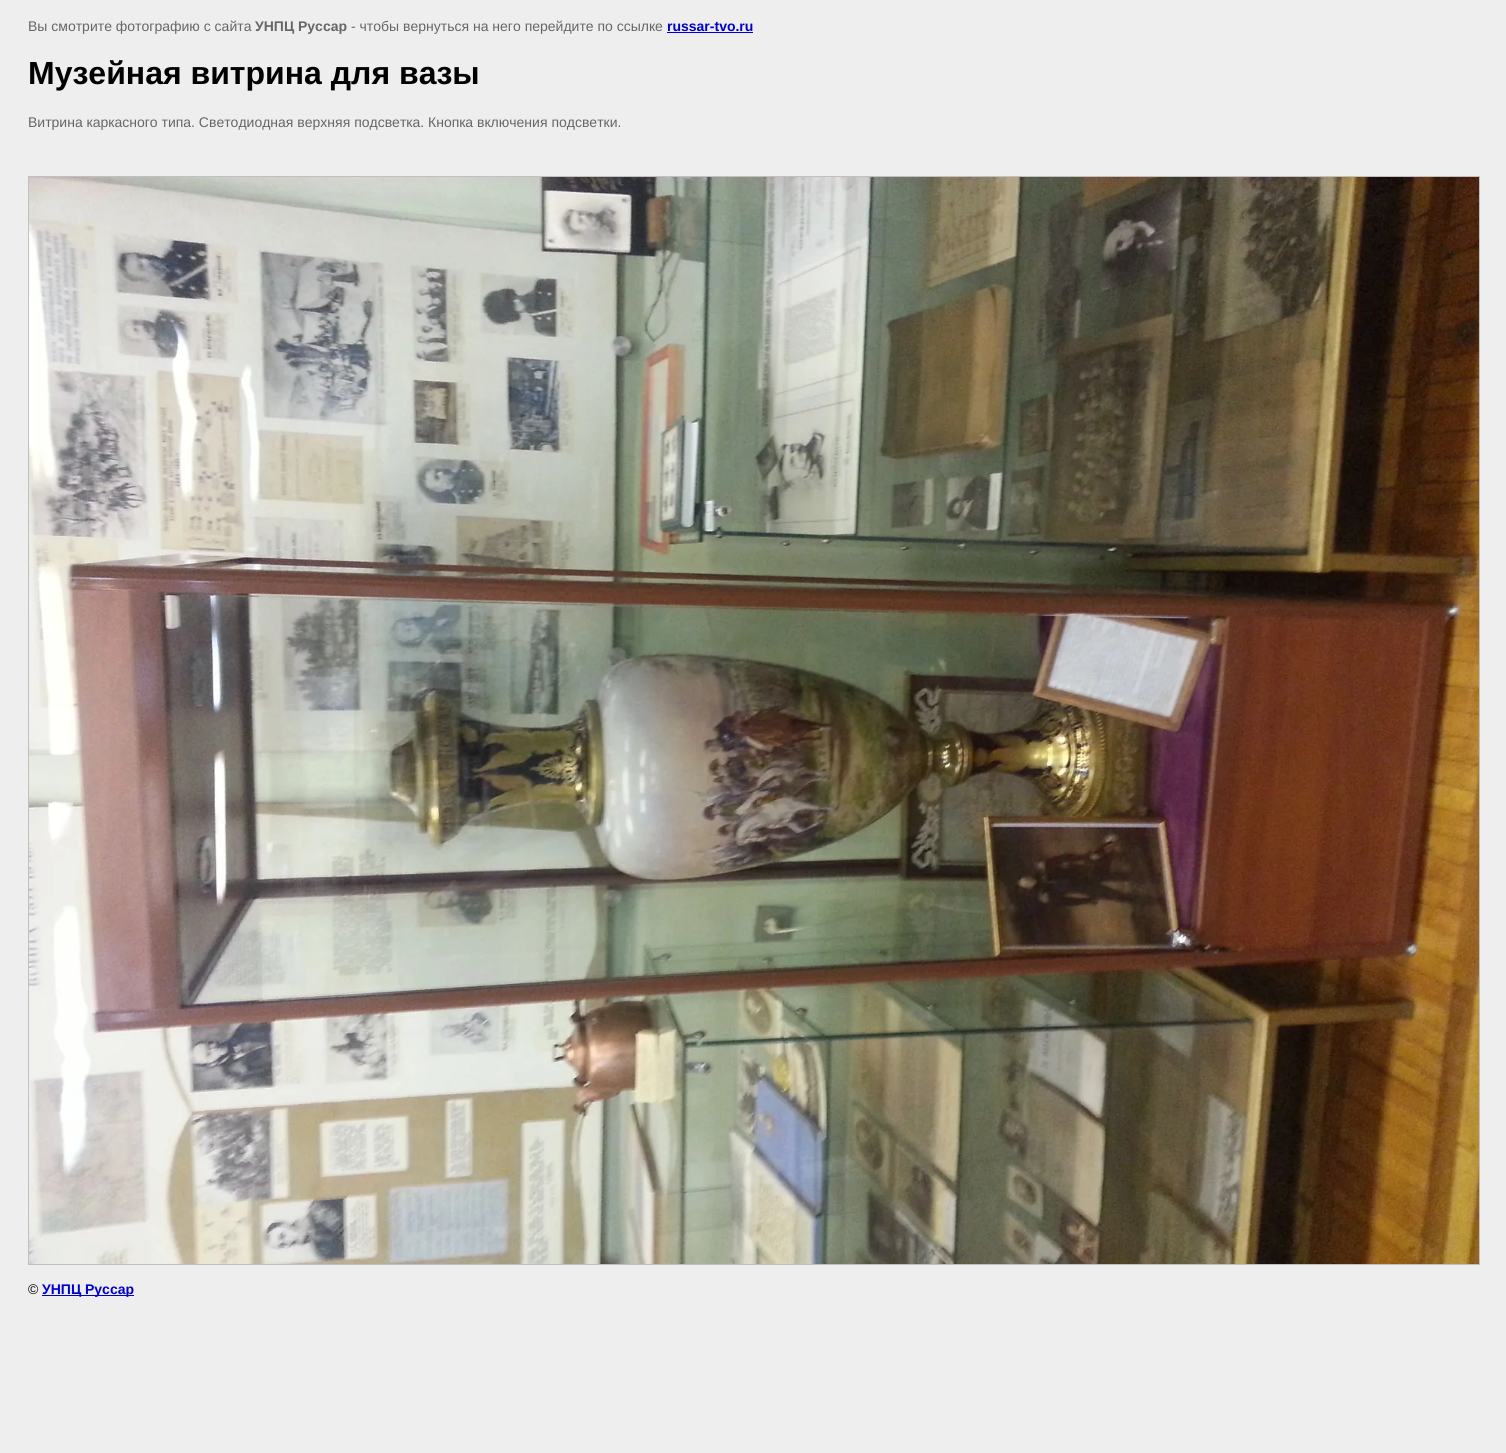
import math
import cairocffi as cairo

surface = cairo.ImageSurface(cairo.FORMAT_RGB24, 1506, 1453)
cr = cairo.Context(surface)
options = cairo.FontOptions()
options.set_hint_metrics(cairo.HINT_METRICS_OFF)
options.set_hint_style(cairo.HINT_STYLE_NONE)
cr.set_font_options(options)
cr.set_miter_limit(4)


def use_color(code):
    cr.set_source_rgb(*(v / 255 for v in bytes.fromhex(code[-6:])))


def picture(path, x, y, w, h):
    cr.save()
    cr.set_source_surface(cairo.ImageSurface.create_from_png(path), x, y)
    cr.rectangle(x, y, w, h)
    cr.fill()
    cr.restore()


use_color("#eeeeee")
cr.paint()
cr.select_font_face("Liberation Sans")
cr.set_font_size(14)
use_color("#666666")
cr.move_to(28, 31)
cr.show_text("Вы смотрите фотографию с сайта")
cr.select_font_face("Liberation Sans", cairo.FONT_SLANT_NORMAL, cairo.FONT_WEIGHT_BOLD)
cr.move_to(255, 31)
cr.show_text("УНПЦ Руссар")
cr.select_font_face("Liberation Sans")
cr.move_to(351, 31)
cr.show_text("- чтобы вернуться на него перейдите по ссылке")
cr.select_font_face("Liberation Sans", cairo.FONT_SLANT_NORMAL, cairo.FONT_WEIGHT_BOLD)
use_color("#0000cc")
cr.move_to(667, 31)
cr.show_text("russar-tvo.ru")
cr.rectangle(667, 32, 86, 1)
cr.fill()
cr.set_font_size(32)
use_color("#000000")
cr.move_to(28, 84)
cr.show_text("Музейная витрина для вазы")
cr.select_font_face("Liberation Sans")
cr.set_font_size(14)
use_color("#666666")
cr.move_to(28, 127)
cr.show_text("Витрина каркасного типа. Светодиодная верхняя подсветка. Кнопка включения подсветки.")
cr.rectangle(28.5, 176.5, 1451, 1088)
use_color("#c0c0c0")
cr.set_line_width(1)
cr.stroke()
picture("img1.png", 29, 177, 1450, 1087)
use_color("#000000")
cr.move_to(28, 1294)
cr.show_text("©")
use_color("#0000cc")
cr.rectangle(42, 1295, 92, 1)
cr.fill()
cr.select_font_face("Liberation Sans", cairo.FONT_SLANT_NORMAL, cairo.FONT_WEIGHT_BOLD)
cr.move_to(42, 1294)
cr.show_text("УНПЦ Руссар")
surface.write_to_png("result.png")
